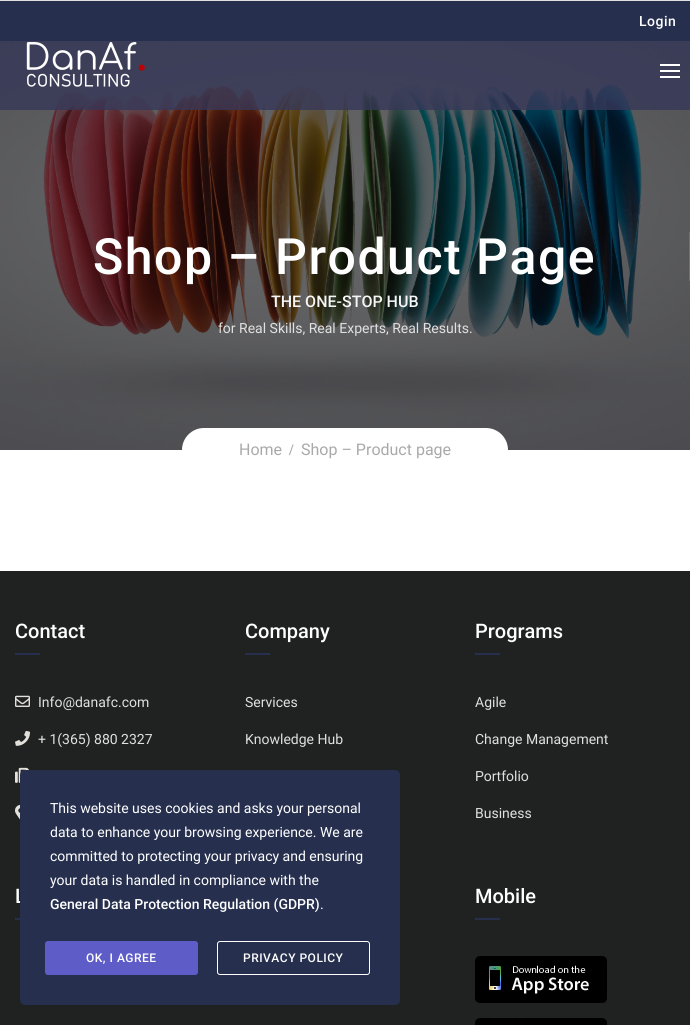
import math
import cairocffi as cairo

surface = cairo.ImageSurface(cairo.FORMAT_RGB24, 690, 1025)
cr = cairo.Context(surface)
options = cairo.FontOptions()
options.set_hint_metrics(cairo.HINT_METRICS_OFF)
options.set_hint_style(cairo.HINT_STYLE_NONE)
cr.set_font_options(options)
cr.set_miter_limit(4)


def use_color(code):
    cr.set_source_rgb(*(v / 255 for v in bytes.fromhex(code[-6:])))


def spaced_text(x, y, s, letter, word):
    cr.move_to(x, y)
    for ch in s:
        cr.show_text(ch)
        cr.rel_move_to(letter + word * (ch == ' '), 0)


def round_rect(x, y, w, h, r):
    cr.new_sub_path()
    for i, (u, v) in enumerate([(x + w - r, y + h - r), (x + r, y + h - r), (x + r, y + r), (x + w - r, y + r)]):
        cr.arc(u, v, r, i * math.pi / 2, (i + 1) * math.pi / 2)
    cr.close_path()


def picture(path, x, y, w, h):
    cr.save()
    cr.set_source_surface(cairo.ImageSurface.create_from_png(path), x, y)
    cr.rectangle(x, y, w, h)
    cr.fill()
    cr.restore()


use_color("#ffffff")
cr.paint()
picture("img2.png", 0, 41, 690, 409)
cr.set_source_rgba(0.212, 0.216, 0.345, 0.8)
cr.rectangle(0, 41, 690, 69)
cr.fill()
use_color("#e0e0e0")
cr.rectangle(0, 0, 690, 1)
cr.fill()
use_color("#26304e")
cr.rectangle(0, 1, 690, 40)
cr.fill()
cr.select_font_face("Roboto Medium")
cr.set_font_size(14)
use_color("#ffffff")
spaced_text(639, 26, "Login", 0.5, 0)
picture("img1.png", 26, 41, 119, 46)
cr.rectangle(660, 64, 20, 2)
cr.fill()
cr.rectangle(660, 70, 20, 2)
cr.fill()
cr.rectangle(660, 76, 20, 2)
cr.fill()
cr.set_font_size(50)
spaced_text(93, 274, "Shop – Product Page", 1.5, 0)
use_color("#717173")
cr.rectangle(689, 232, 1, 49)
cr.fill()
cr.set_font_size(16)
use_color("#f6f6f7")
cr.move_to(271, 307)
cr.show_text("THE ONE-STOP HUB")
cr.select_font_face("Roboto")
cr.set_font_size(14)
use_color("#e0e0e0")
cr.move_to(218, 333)
cr.show_text("for Real Skills, Real Experts, Real Results.")
use_color("#ffffff")
round_rect(182, 428, 326, 44, 22)
cr.fill()
cr.set_font_size(16)
use_color("#a9a9a9")
cr.move_to(239, 455)
cr.show_text("Home")
cr.select_font_face("Liberation Serif", cairo.FONT_SLANT_NORMAL, cairo.FONT_WEIGHT_BOLD)
cr.move_to(289, 455)
cr.show_text("/")
cr.select_font_face("Roboto")
cr.move_to(301, 455)
cr.show_text("Shop – Product page")
use_color("#202121")
cr.rectangle(0, 571, 690, 454)
cr.fill()
cr.select_font_face("Roboto Medium")
cr.set_font_size(20)
use_color("#ffffff")
cr.move_to(15, 638)
cr.show_text("Contact")
use_color("#26304e")
cr.rectangle(15, 653, 25, 2)
cr.fill()
picture("img3.png", 15, 695, 15, 12)
cr.select_font_face("Roboto")
cr.set_font_size(14)
use_color("#e0e0e0")
cr.move_to(38, 707)
cr.show_text("Info@danafc.com")
picture("img4.png", 15, 730, 15, 16)
cr.move_to(38, 744)
cr.show_text("+ 1(365) 880 2327")
picture("img5.png", 15, 767, 14, 16)
picture("img6.png", 15, 804, 5, 16)
cr.select_font_face("Roboto Medium")
cr.set_font_size(20)
use_color("#ffffff")
cr.move_to(245, 638)
cr.show_text("Company")
use_color("#26304e")
cr.rectangle(245, 653, 25, 2)
cr.fill()
cr.select_font_face("Roboto")
cr.set_font_size(14)
use_color("#e0e0e0")
cr.move_to(245, 707)
cr.show_text("Services")
cr.move_to(245, 744)
cr.show_text("Knowledge Hub")
cr.select_font_face("Roboto Medium")
cr.set_font_size(20)
use_color("#ffffff")
cr.move_to(475, 638)
cr.show_text("Programs")
use_color("#26304e")
cr.rectangle(475, 653, 25, 2)
cr.fill()
cr.select_font_face("Roboto")
cr.set_font_size(14)
use_color("#e0e0e0")
cr.move_to(475, 707)
cr.show_text("Agile")
cr.move_to(475, 744)
cr.show_text("Change Management")
cr.move_to(475, 781)
cr.show_text("Portfolio")
cr.move_to(475, 818)
cr.show_text("Business")
cr.select_font_face("Roboto Medium")
cr.set_font_size(20)
use_color("#ffffff")
cr.move_to(15, 903)
cr.show_text("L")
use_color("#26304e")
cr.rectangle(15, 918, 5, 2)
cr.fill()
use_color("#ffffff")
cr.move_to(475, 903)
cr.show_text("Mobile")
use_color("#26304e")
cr.rectangle(475, 918, 25, 2)
cr.fill()
picture("img7.png", 475, 956, 132, 47)
picture("img8.png", 475, 1018, 132, 7)
round_rect(20, 770, 380, 235, 5)
cr.fill()
cr.select_font_face("Roboto")
cr.set_font_size(14)
use_color("#ffffff")
cr.move_to(50, 813)
cr.show_text("This website uses cookies and asks your personal")
cr.move_to(50, 837)
cr.show_text("data to enhance your browsing experience. We are")
cr.move_to(50, 861)
cr.show_text("committed to protecting your privacy and ensuring")
cr.move_to(50, 885)
cr.show_text("your data is handled in compliance with the")
cr.select_font_face("Roboto Medium")
cr.move_to(50, 909)
cr.show_text("General Data Protection Regulation (GDPR)")
cr.select_font_face("Roboto")
cr.move_to(320, 909)
cr.show_text(".")
use_color("#5e5cc7")
round_rect(45.5, 941.5, 152, 33, 2.5)
cr.fill_preserve()
cr.set_line_width(1)
cr.stroke()
cr.select_font_face("Roboto Medium")
cr.set_font_size(12)
use_color("#ffffff")
spaced_text(86, 962, "OK, I AGREE", 0.5, 0)
round_rect(217.5, 941.5, 152, 33, 2.5)
cr.stroke()
spaced_text(243, 962, "PRIVACY POLICY", 0.5, 0)
surface.write_to_png("result.png")
